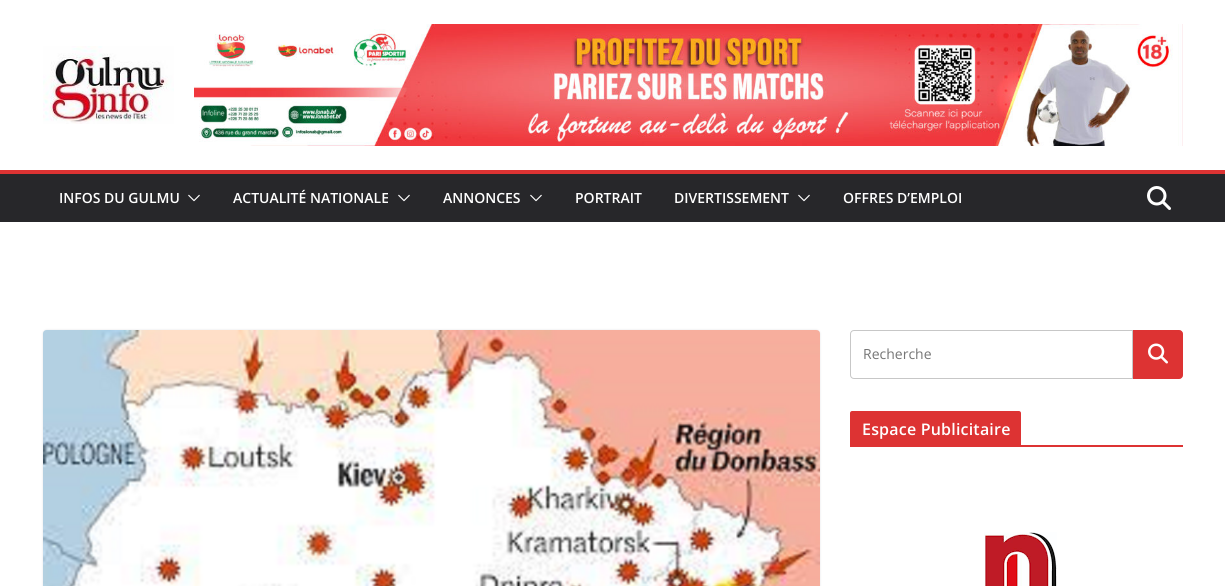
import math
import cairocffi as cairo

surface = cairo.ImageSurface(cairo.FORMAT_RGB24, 1225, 586)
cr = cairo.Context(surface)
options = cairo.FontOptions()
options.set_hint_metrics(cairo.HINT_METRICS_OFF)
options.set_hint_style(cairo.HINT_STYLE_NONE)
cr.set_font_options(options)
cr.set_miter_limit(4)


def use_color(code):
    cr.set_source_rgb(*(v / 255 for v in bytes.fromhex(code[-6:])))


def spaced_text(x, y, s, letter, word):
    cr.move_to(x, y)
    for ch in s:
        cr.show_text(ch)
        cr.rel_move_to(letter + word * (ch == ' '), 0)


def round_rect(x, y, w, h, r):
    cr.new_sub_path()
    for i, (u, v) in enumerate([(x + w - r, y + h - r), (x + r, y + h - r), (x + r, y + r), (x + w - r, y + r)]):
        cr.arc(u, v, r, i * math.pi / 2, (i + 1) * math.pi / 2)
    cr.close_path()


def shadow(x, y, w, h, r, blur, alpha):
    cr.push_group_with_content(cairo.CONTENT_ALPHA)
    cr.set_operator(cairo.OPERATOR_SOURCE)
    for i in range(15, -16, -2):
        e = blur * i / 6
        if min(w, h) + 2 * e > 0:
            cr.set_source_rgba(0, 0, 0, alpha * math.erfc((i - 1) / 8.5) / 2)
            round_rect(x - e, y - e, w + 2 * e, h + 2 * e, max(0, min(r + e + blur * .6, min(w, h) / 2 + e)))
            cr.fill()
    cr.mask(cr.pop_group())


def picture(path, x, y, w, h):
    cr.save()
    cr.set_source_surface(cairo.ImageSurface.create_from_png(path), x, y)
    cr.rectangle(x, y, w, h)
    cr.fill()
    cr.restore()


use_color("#ffffff")
cr.paint()
picture("img1.png", 43, 46, 131, 78)
picture("img2.png", 194, 24, 989, 122)
use_color("#27272a")
cr.rectangle(0, 174, 1225, 48)
cr.fill()
use_color("#dd3333")
cr.rectangle(0, 170, 1225, 4)
cr.fill()
cr.select_font_face("Open Sans SemiBold")
cr.set_font_size(14)
use_color("#ffffff")
cr.move_to(59, 203)
cr.show_text("INFOS DU GULMU")
picture("img3.png", 188, 194, 12, 8)
cr.move_to(233, 203)
cr.show_text("ACTUALITÉ NATIONALE")
picture("img3.png", 398, 194, 12, 8)
cr.move_to(443, 203)
cr.show_text("ANNONCES")
picture("img3.png", 530, 194, 12, 8)
cr.move_to(575, 203)
cr.show_text("PORTRAIT")
cr.move_to(674, 203)
cr.show_text("DIVERTISSEMENT")
picture("img3.png", 798, 194, 12, 8)
cr.move_to(843, 203)
cr.show_text("OFFRES D’EMPLOI")
picture("img4.png", 1147, 186, 24, 24)
use_color("#e4e4e7")
shadow(43, 330, 777, 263, 4, 1, 1)
picture("img5.png", 43, 330, 777, 256)
cr.new_path()
cr.move_to(854, 330.5)
cr.line_to(1132.5, 330.5)
cr.line_to(1132.5, 378.5)
cr.line_to(854, 378.5)
cr.curve_to(852, 378.5, 850.5, 377, 850.5, 375)
cr.line_to(850.5, 334)
cr.curve_to(850.5, 332, 852, 330.5, 854, 330.5)
cr.close_path()
use_color("#c7c7c7")
cr.set_line_width(1)
cr.stroke()
cr.select_font_face("Open Sans")
use_color("#757575")
cr.move_to(863, 359)
cr.show_text("Recherche")
use_color("#dd3333")
cr.new_path()
cr.move_to(1133.5, 330.5)
cr.line_to(1179, 330.5)
cr.curve_to(1181, 330.5, 1182.5, 332, 1182.5, 334)
cr.line_to(1182.5, 375)
cr.curve_to(1182.5, 377, 1181, 378.5, 1179, 378.5)
cr.line_to(1133.5, 378.5)
cr.close_path()
cr.fill_preserve()
cr.stroke()
picture("img6.png", 1148, 343, 20, 21)
cr.rectangle(850, 445, 333, 2)
cr.fill()
cr.new_path()
cr.move_to(852, 411)
cr.line_to(1019, 411)
cr.curve_to(1020, 411, 1021, 412, 1021, 413)
cr.line_to(1021, 445)
cr.line_to(850, 445)
cr.line_to(850, 413)
cr.curve_to(850, 412, 851, 411, 852, 411)
cr.close_path()
cr.fill()
cr.select_font_face("Open Sans SemiBold")
cr.set_font_size(16)
use_color("#ffffff")
spaced_text(862, 435, "Espace Publicitaire", 0.2, 0)
picture("img7.png", 984, 532, 73, 54)
surface.write_to_png("result.png")
